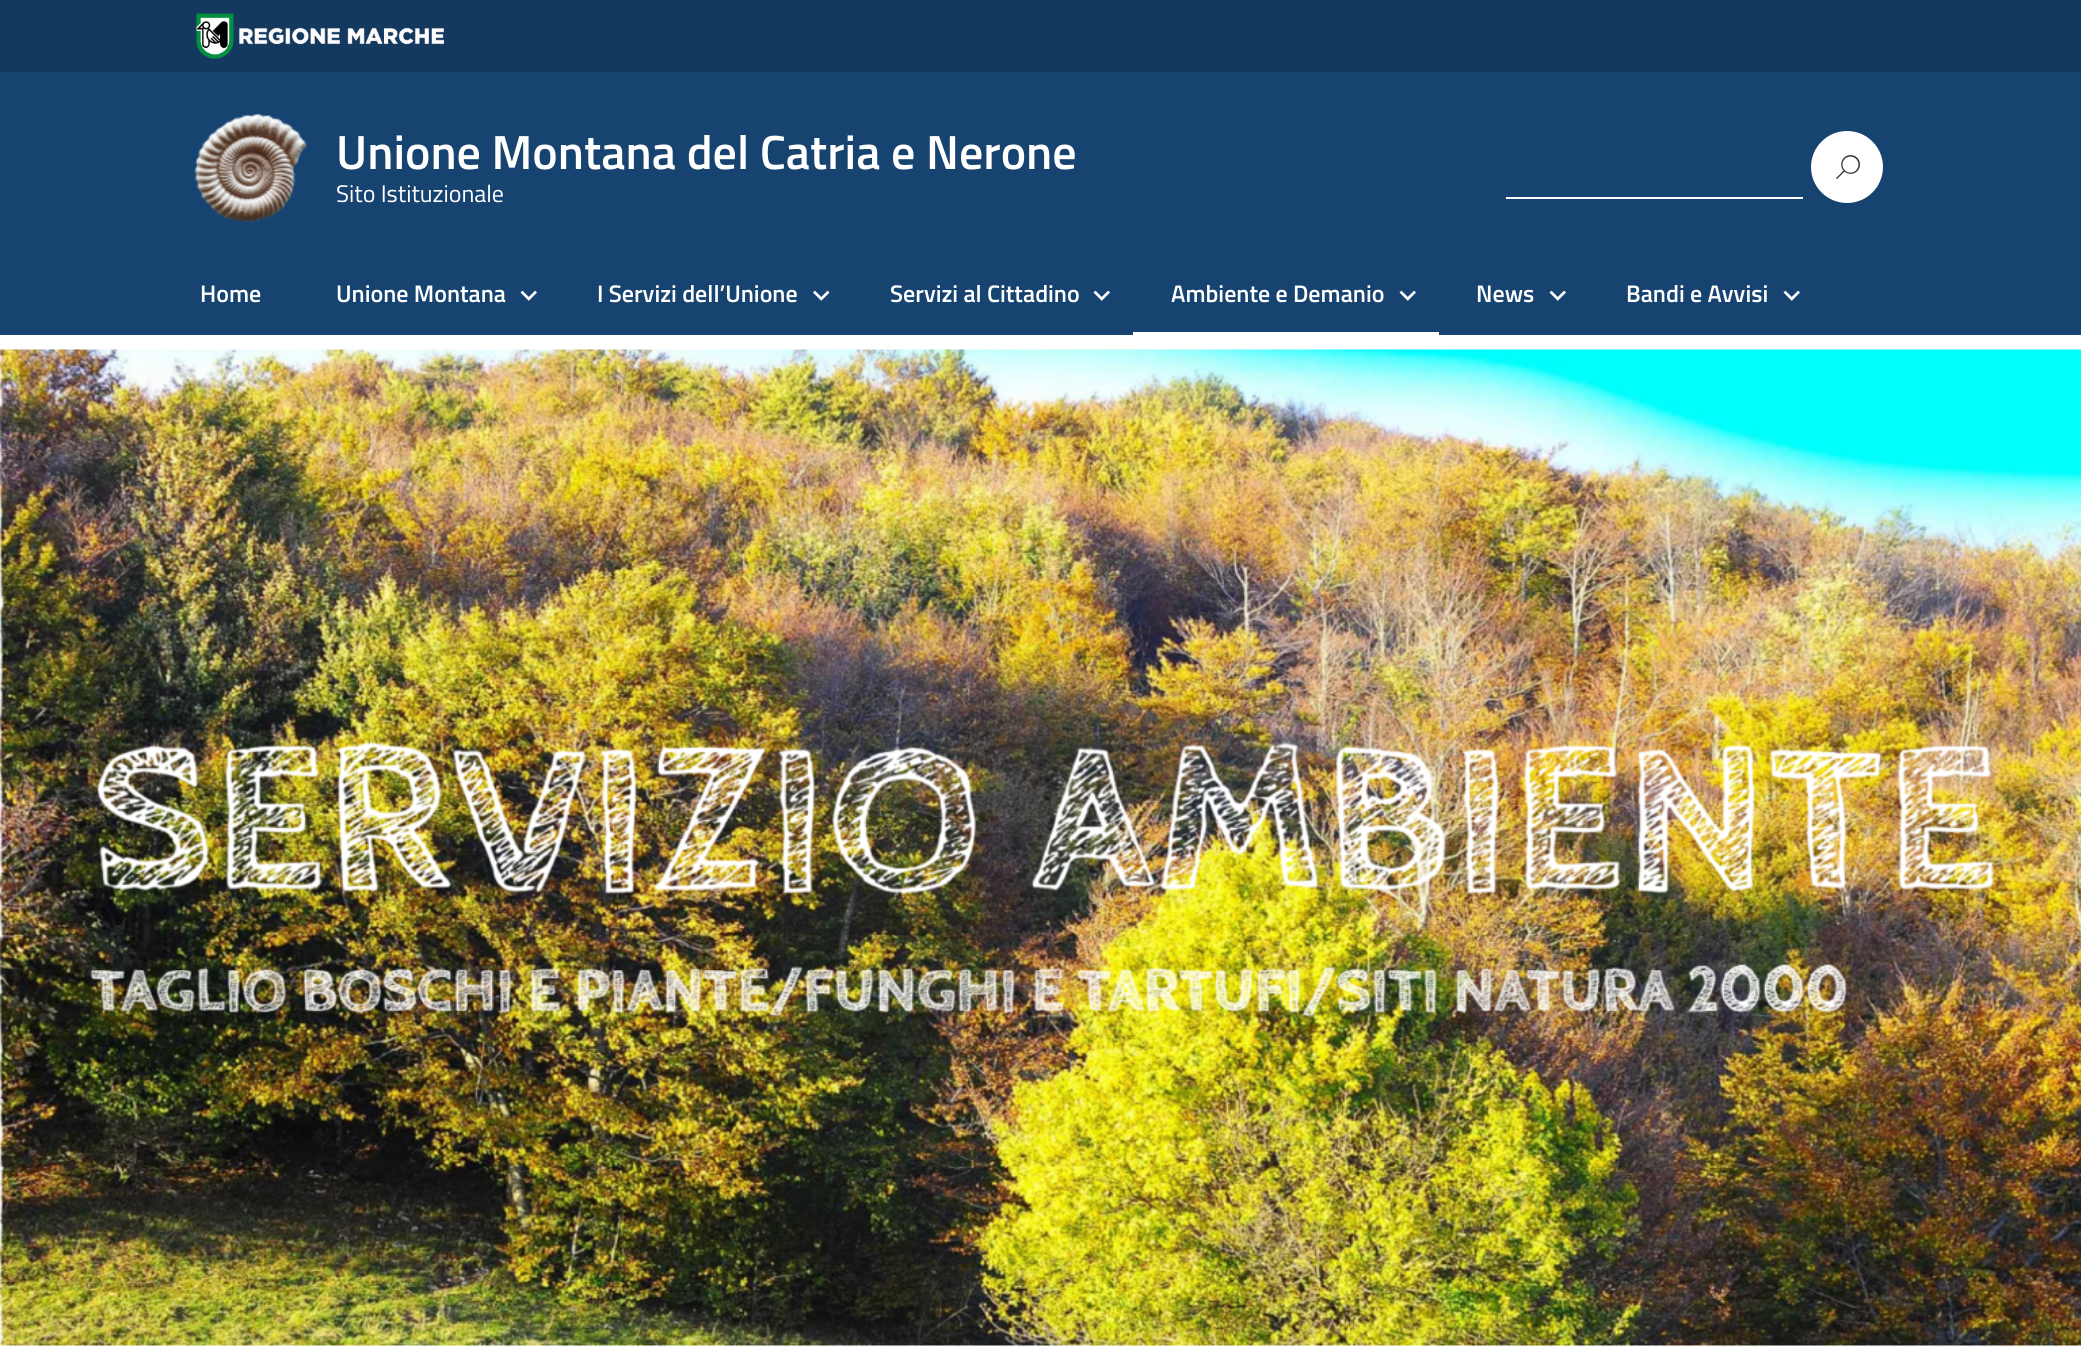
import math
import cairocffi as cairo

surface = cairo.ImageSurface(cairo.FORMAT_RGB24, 2081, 1371)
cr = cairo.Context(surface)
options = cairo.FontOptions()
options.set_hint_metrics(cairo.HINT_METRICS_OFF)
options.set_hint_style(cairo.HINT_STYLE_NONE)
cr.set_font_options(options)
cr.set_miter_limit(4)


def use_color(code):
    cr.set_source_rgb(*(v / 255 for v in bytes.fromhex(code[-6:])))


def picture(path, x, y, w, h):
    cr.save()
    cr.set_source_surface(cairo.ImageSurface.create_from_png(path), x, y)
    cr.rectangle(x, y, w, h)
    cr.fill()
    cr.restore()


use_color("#ffffff")
cr.paint()
use_color("#174370")
cr.rectangle(0, 72, 2081, 263)
cr.fill()
use_color("#14395f")
cr.rectangle(0, 0, 2081, 72)
cr.fill()
picture("img1.png", 196, 13, 248, 46)
picture("img2.png", 194, 114, 114, 108)
cr.select_font_face("Titillium Web SemiBold")
cr.set_font_size(48)
use_color("#ffffff")
cr.move_to(336, 169)
cr.show_text("Unione Montana del Catria e Nerone")
cr.select_font_face("Titillium Web")
cr.set_font_size(24)
cr.move_to(336, 202)
cr.show_text("Sito Istituzionale")
cr.rectangle(1506, 197, 297, 2)
cr.fill()
cr.arc(1847, 167, 36, 0, 2 * math.pi)
cr.fill()
picture("img3.png", 1836, 155, 24, 24)
cr.select_font_face("Titillium Web SemiBold")
cr.move_to(200, 302)
cr.show_text("Home")
cr.move_to(336, 302)
cr.show_text("Unione Montana")
picture("img4.png", 520, 290, 17, 11)
cr.move_to(597, 302)
cr.show_text("I Servizi dell’Unione")
picture("img5.png", 813, 290, 17, 11)
cr.move_to(890, 302)
cr.show_text("Servizi al Cittadino")
picture("img4.png", 1093, 290, 17, 11)
cr.rectangle(1133, 332, 306, 3)
cr.fill()
cr.move_to(1171, 302)
cr.show_text("Ambiente e Demanio")
picture("img4.png", 1399, 290, 17, 11)
cr.move_to(1476, 302)
cr.show_text("News")
picture("img4.png", 1549, 290, 17, 11)
cr.move_to(1626, 302)
cr.show_text("Bandi e Avvisi")
picture("img4.png", 1783, 290, 17, 11)
picture("img6.png", 0, 349, 2081, 997)
surface.write_to_png("result.png")
